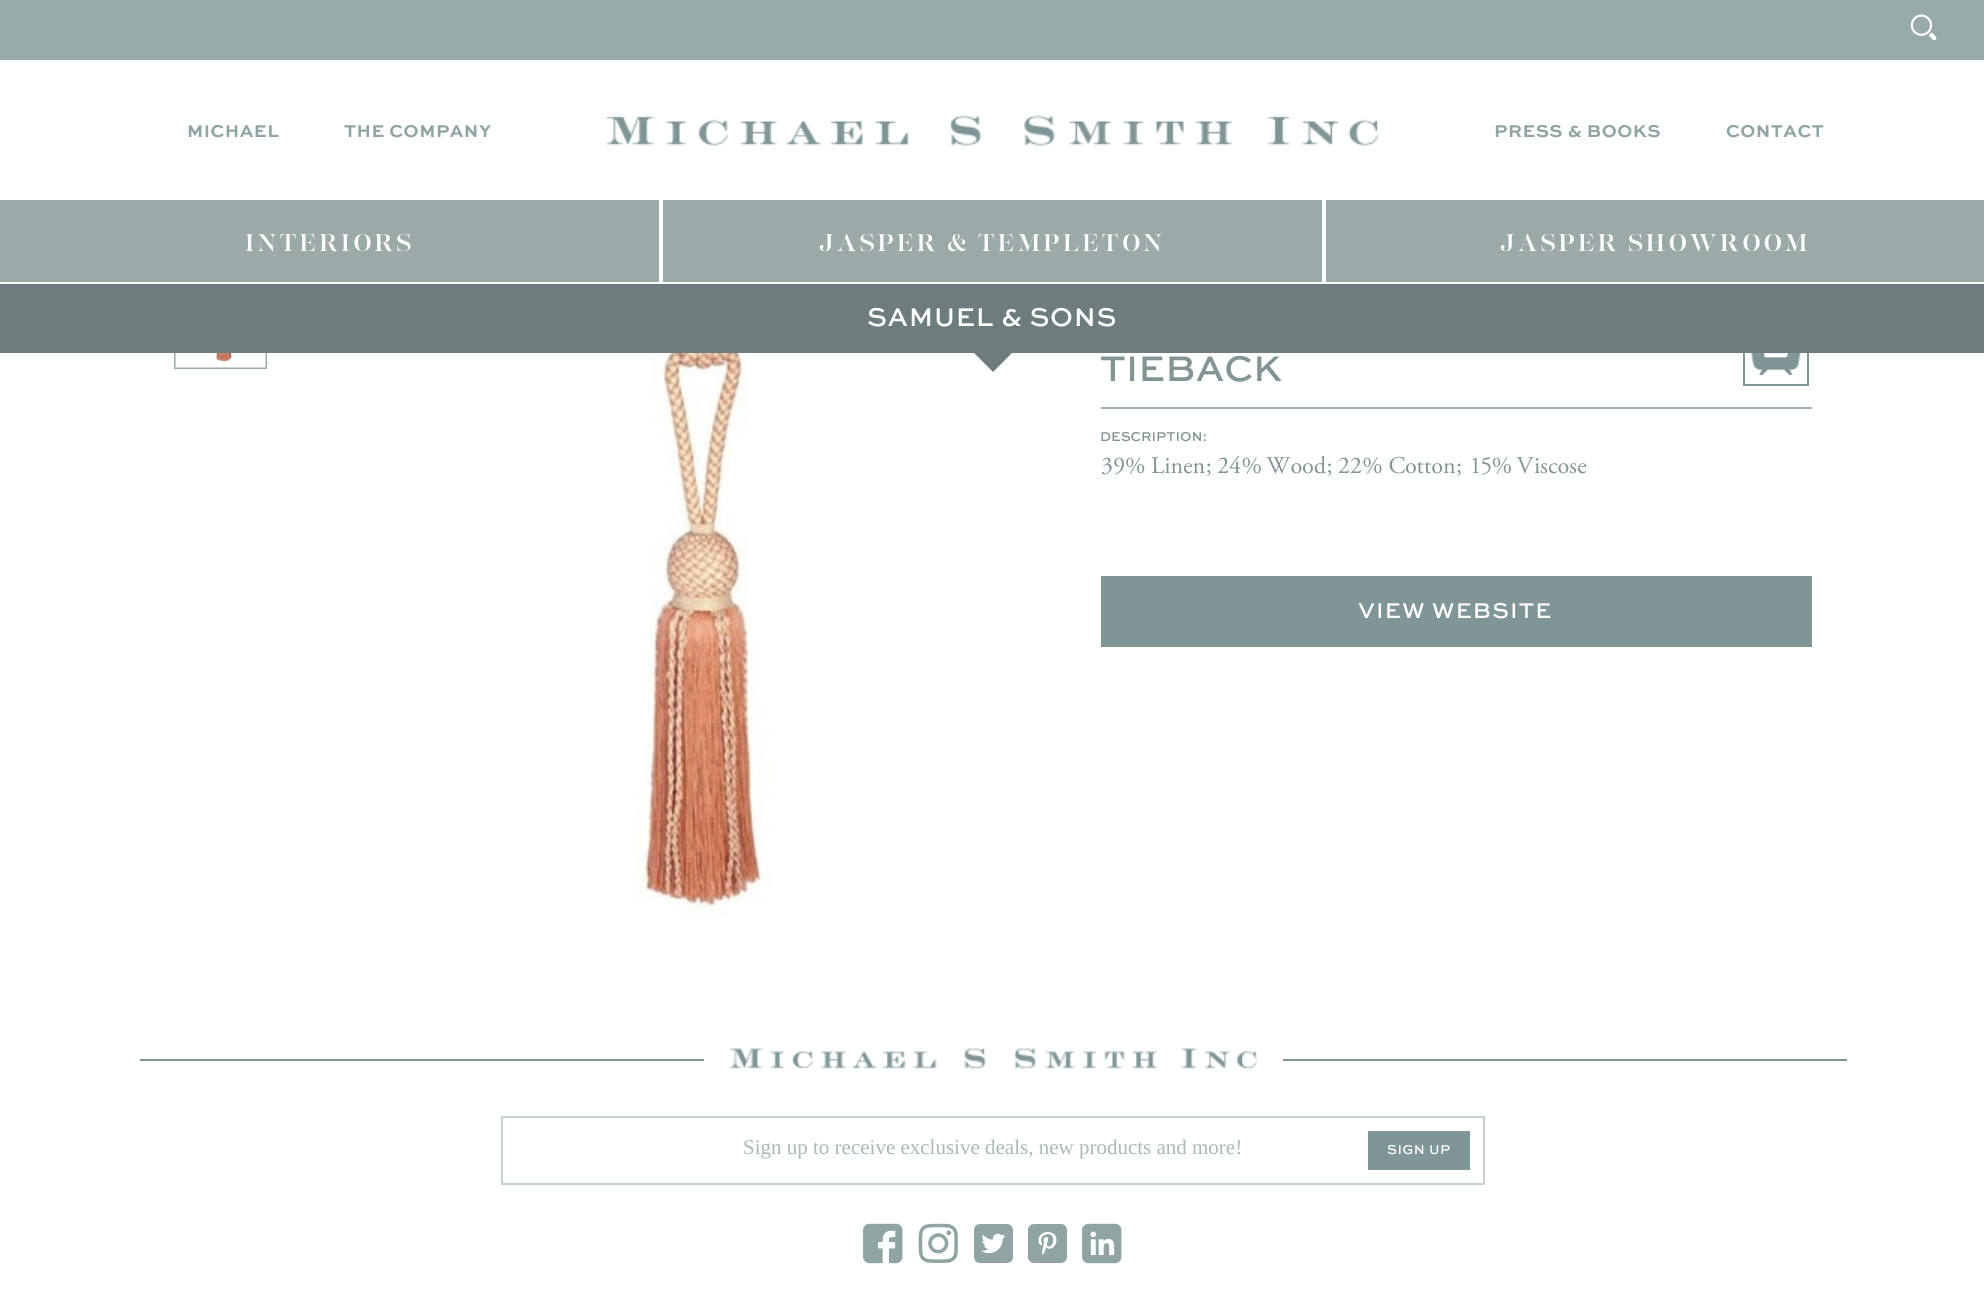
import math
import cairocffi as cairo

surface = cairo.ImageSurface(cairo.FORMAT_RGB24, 1984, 1295)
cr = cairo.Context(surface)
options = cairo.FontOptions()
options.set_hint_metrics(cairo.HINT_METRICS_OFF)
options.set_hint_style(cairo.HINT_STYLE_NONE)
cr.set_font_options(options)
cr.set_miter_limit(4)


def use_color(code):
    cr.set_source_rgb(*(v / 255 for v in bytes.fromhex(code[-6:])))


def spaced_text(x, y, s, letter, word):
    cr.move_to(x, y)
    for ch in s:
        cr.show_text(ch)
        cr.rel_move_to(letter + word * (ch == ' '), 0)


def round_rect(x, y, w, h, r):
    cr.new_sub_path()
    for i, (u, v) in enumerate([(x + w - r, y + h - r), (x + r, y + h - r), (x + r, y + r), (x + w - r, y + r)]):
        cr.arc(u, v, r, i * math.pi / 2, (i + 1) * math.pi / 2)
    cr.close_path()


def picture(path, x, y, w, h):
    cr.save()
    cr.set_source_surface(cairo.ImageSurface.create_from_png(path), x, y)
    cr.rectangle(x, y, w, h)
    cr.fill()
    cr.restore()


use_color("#ffffff")
cr.paint()
cr.rectangle(175, 277, 91, 91)
use_color("#98a9a9")
cr.stroke()
use_color("#ffffff")
cr.rectangle(174, 276, 93, 8)
cr.fill()
use_color("#99aaaa")
cr.rectangle(0, 0, 1984, 60)
cr.fill()
picture("img1.png", 1910, 14, 27, 27)
picture("img2.png", 606, 115, 773, 31)
cr.select_font_face("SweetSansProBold", cairo.FONT_SLANT_NORMAL, cairo.FONT_WEIGHT_BOLD)
cr.set_font_size(18)
use_color("#90a4a4")
spaced_text(187, 137, "MICHAEL", 0.5, 0)
spaced_text(344, 137, "THE COMPANY", 0.5, 0)
spaced_text(1494, 137, "PRESS & BOOKS", 0.5, 0)
spaced_text(1726, 137, "CONTACT", 0.5, 0)
use_color("#9ba9a9")
cr.rectangle(0, 200, 659, 82)
cr.fill()
cr.select_font_face("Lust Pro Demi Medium")
cr.set_font_size(24)
use_color("#ffffff")
spaced_text(245, 251, "INTERIORS", 3.4, 0)
use_color("#9ba9a9")
cr.rectangle(663, 200, 659, 82)
cr.fill()
use_color("#ffffff")
spaced_text(819, 251, "JASPER & TEMPLETON", 3.4, 0)
use_color("#9ba9a9")
cr.rectangle(1326, 200, 658, 82)
cr.fill()
use_color("#ffffff")
spaced_text(1500, 251, "JASPER SHOWROOM", 3.4, 0)
cr.rectangle(1744, 321, 64, 64)
use_color("#809595")
cr.stroke()
use_color("#6d7d7d")
cr.rectangle(0, 284, 1984, 69)
cr.fill()
cr.select_font_face("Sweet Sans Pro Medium")
cr.set_font_size(27)
use_color("#ffffff")
spaced_text(867, 326, "SAMUEL & SONS", 0.75, 0)
use_color("#6d7d7d")
cr.new_path()
cr.move_to(972, 351)
cr.line_to(1014, 351)
cr.line_to(993, 372)
cr.close_path()
cr.fill()
picture("img3.png", 175, 353, 91, 15)
picture("img4.png", 632, 353, 139, 563)
cr.set_font_size(37.5)
use_color("#829494")
cr.move_to(1100, 381)
cr.show_text("TIEBACK")
picture("img5.png", 1751, 353, 50, 22)
use_color("#a0b0b0")
cr.rectangle(1101, 407, 711, 2)
cr.fill()
cr.set_font_size(13.5)
use_color("#829494")
cr.move_to(1100, 441)
cr.show_text("DESCRIPTION:")
cr.select_font_face("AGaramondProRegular")
cr.set_font_size(24)
cr.move_to(1100, 473)
cr.show_text("39% Linen; 24% Wood; 22% Cotton; 15% Viscose")
use_color("#809595")
cr.rectangle(1101, 576, 711, 71)
cr.fill()
cr.select_font_face("Sweet Sans Pro Medium")
cr.set_font_size(22.5)
use_color("#ffffff")
spaced_text(1358, 618, "VIEW WEBSITE", 1.1, 0)
use_color("#809595")
cr.rectangle(140, 1059, 1707, 2)
cr.fill()
use_color("#ffffff")
cr.rectangle(704, 1059, 579, 2)
cr.fill()
picture("img6.png", 729, 1048, 529, 22)
cr.rectangle(502, 1117, 982, 67)
use_color("#c8d1d1")
cr.stroke()
cr.select_font_face("Liberation Serif")
cr.set_font_size(21)
use_color("#aab8b9")
cr.move_to(743, 1154)
cr.show_text("Sign up to receive exclusive deals, new products and more!")
use_color("#809595")
cr.rectangle(1368, 1131, 102, 39)
cr.fill()
cr.select_font_face("Sweet Sans Pro Medium")
cr.set_font_size(13.5)
use_color("#ffffff")
spaced_text(1387, 1154, "SIGN UP", 0.5, 0)
picture("img7.png", 863, 1223, 40, 41)
picture("img8.png", 918, 1223, 40, 40)
use_color("#90a4a4")
round_rect(974, 1224, 39, 39, 6)
cr.fill()
picture("img9.png", 981, 1233, 25, 21)
round_rect(1028, 1224, 39, 39, 6)
cr.fill()
picture("img10.png", 1038, 1232, 19, 23)
picture("img11.png", 1082, 1223, 40, 41)
surface.write_to_png("result.png")
